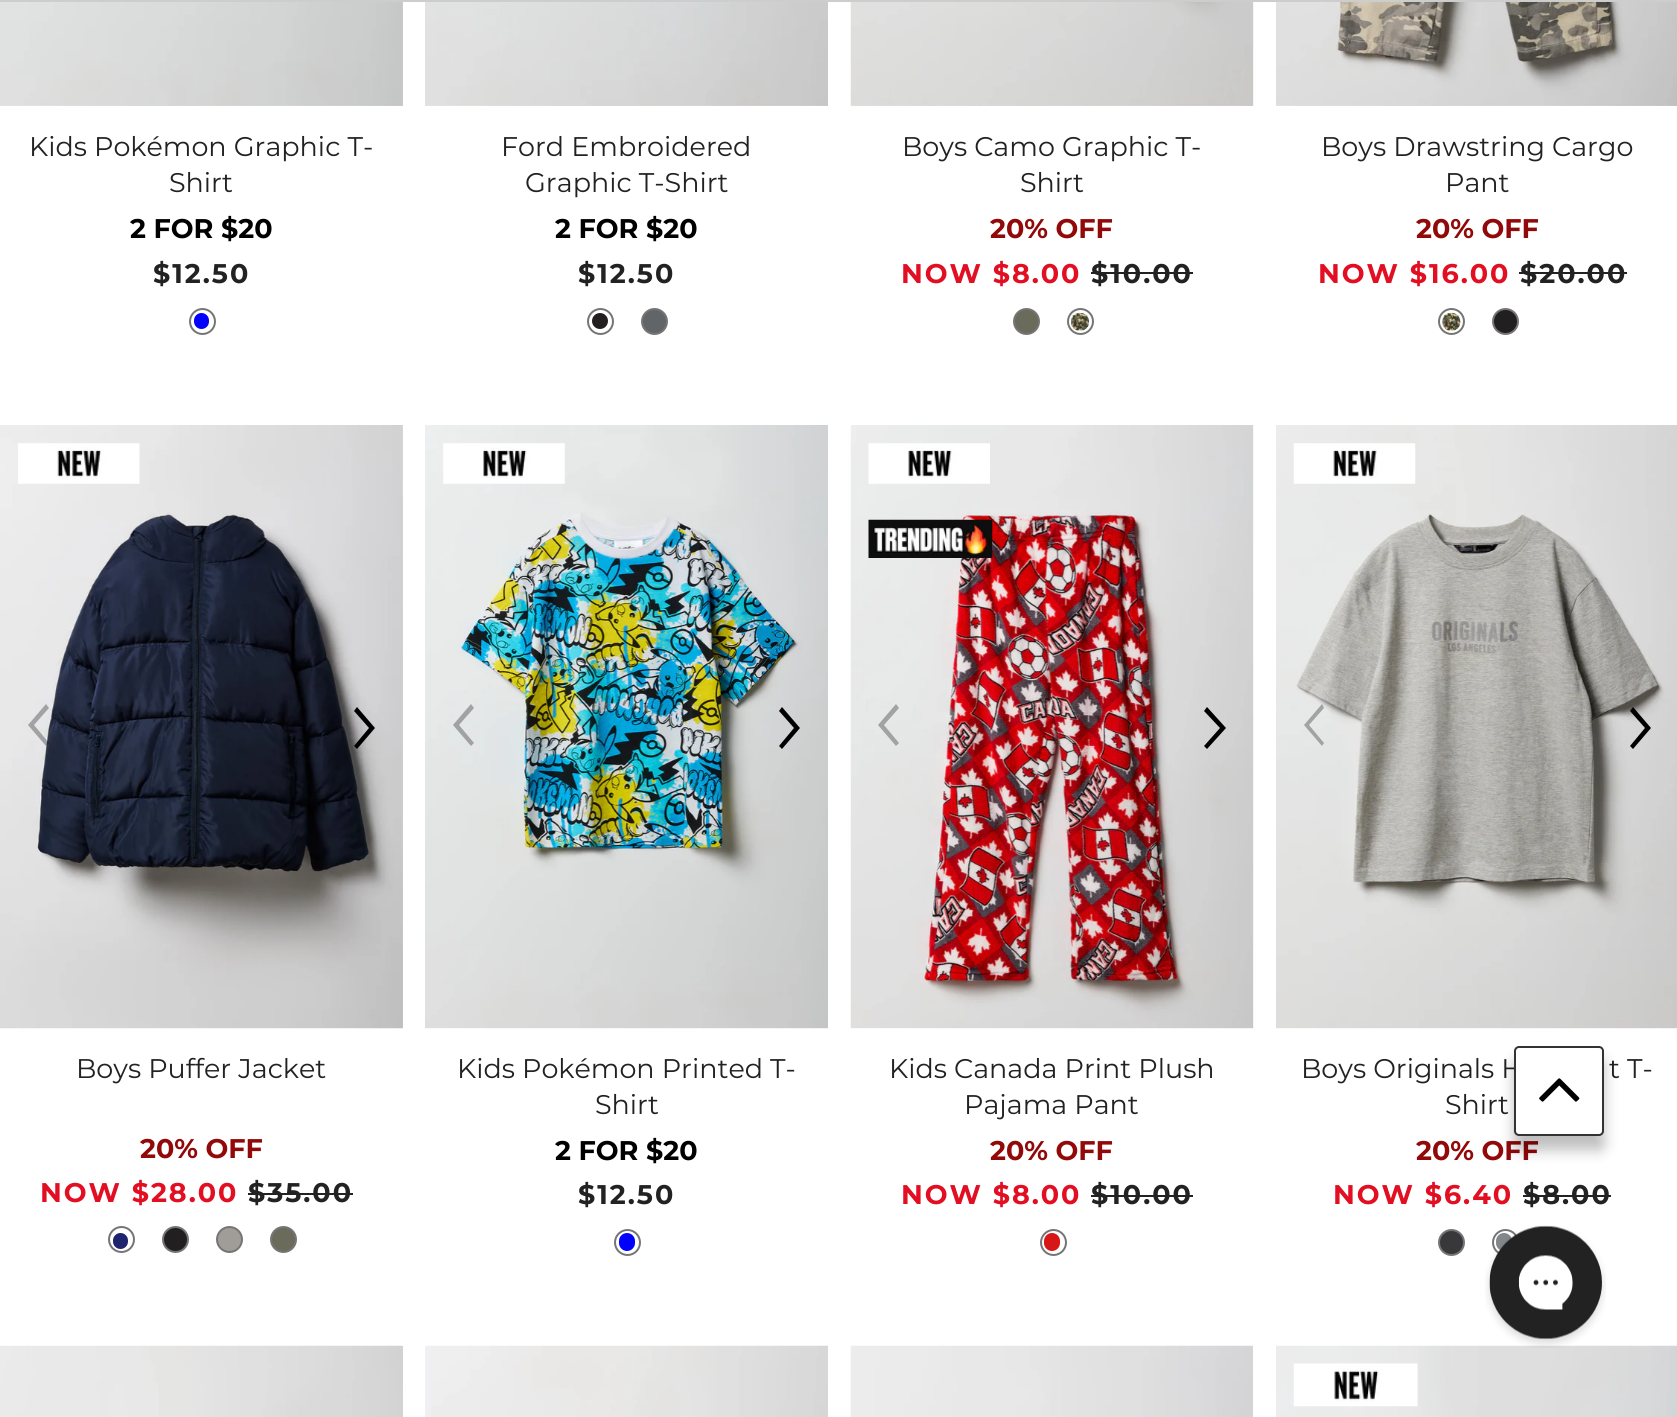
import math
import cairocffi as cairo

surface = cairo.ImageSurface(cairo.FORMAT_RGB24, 1677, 1417)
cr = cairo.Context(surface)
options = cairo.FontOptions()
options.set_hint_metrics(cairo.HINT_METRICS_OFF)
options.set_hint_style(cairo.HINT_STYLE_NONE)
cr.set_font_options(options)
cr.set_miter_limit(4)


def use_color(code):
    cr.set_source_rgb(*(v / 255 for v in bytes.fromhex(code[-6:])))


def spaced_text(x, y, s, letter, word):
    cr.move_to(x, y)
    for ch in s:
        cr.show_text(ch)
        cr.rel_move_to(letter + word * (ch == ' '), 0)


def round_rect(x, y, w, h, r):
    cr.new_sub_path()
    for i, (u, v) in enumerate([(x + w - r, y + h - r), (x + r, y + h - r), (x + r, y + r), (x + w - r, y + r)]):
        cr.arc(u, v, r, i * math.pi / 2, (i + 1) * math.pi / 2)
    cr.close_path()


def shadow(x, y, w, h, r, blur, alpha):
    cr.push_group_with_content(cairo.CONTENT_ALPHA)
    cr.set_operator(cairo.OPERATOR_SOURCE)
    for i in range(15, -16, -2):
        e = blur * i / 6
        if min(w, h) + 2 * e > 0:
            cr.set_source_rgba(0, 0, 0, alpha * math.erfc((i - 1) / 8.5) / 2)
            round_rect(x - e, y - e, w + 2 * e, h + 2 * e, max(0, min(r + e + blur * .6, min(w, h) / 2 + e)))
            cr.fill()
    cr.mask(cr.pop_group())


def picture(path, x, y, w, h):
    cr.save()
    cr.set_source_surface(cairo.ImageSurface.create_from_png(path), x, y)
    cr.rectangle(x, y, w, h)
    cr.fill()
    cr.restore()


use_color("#ffffff")
cr.paint()
use_color("#cdcdcd")
cr.new_path()
cr.move_to(0, -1)
cr.line_to(0, 2)
cr.line_to(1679, 2)
cr.line_to(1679, -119)
cr.line_to(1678, -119)
cr.line_to(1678, -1)
cr.close_path()
cr.fill()
picture("img1.png", 0, 2, 403, 104)
picture("img2.png", 0, 2, 403, 104)
cr.select_font_face("Montserrat")
cr.set_font_size(27)
use_color("#222222")
cr.move_to(29, 156)
cr.show_text("Kids Pokémon Graphic T-")
cr.move_to(169, 192)
cr.show_text("Shirt")
cr.select_font_face("Montserrat", cairo.FONT_SLANT_NORMAL, cairo.FONT_WEIGHT_BOLD)
use_color("#000000")
cr.move_to(130, 238)
cr.show_text("2 FOR $20")
use_color("#222222")
spaced_text(153, 283, "$12.50", 2, 0)
use_color("#0000ff")
round_rect(194, 313, 15, 16, 7.5)
cr.fill()
cr.arc(202.5, 321.5, 12.5, 0, 2 * math.pi)
use_color("#757575")
cr.stroke()
picture("img4.png", 425, 105, 403, 1)
picture("img3.png", 425, 2, 403, 104)
cr.select_font_face("Montserrat")
use_color("#222222")
cr.move_to(501, 156)
cr.show_text("Ford Embroidered")
cr.move_to(525, 192)
cr.show_text("Graphic T-Shirt")
cr.select_font_face("Montserrat", cairo.FONT_SLANT_NORMAL, cairo.FONT_WEIGHT_BOLD)
use_color("#000000")
cr.move_to(555, 238)
cr.show_text("2 FOR $20")
use_color("#222222")
spaced_text(578, 283, "$12.50", 2, 0)
use_color("#221f20")
cr.new_path()
cr.arc(600, 321, 8, 0, 2 * math.pi)
cr.fill()
cr.arc(600.5, 321.5, 12.5, 0, 2 * math.pi)
use_color("#757575")
cr.stroke()
use_color("#626567")
cr.arc(654.5, 321.5, 12.5, 0, 2 * math.pi)
cr.fill_preserve()
use_color("#757575")
cr.stroke()
picture("img5.png", 850, 2, 403, 104)
picture("img6.png", 851, 2, 403, 104)
cr.select_font_face("Montserrat")
use_color("#222222")
cr.move_to(902, 156)
cr.show_text("Boys Camo Graphic T-")
cr.move_to(1020, 192)
cr.show_text("Shirt")
cr.select_font_face("Montserrat", cairo.FONT_SLANT_NORMAL, cairo.FONT_WEIGHT_BOLD)
use_color("#910909")
cr.move_to(990, 238)
cr.show_text("20% OFF")
use_color("#e20f23")
spaced_text(901, 283, "NOW $8.00", 2, 0)
use_color("#222222")
spaced_text(1091, 283, "$10.00", 2, 0)
cr.rectangle(1091, 272, 102, 2)
cr.fill()
use_color("#6a6b5b")
cr.arc(1026.5, 321.5, 12.5, 0, 2 * math.pi)
cr.fill_preserve()
use_color("#757575")
cr.stroke()
picture("img7.png", 1071, 312, 18, 19)
cr.arc(1080.5, 321.5, 12.5, 0, 2 * math.pi)
cr.stroke()
picture("img9.png", 1276, 105, 401, 1)
picture("img8.png", 1276, 2, 401, 104)
cr.select_font_face("Montserrat")
use_color("#222222")
cr.move_to(1321, 156)
cr.show_text("Boys Drawstring Cargo")
cr.move_to(1445, 192)
cr.show_text("Pant")
cr.select_font_face("Montserrat", cairo.FONT_SLANT_NORMAL, cairo.FONT_WEIGHT_BOLD)
use_color("#910909")
cr.move_to(1416, 238)
cr.show_text("20% OFF")
use_color("#e20f23")
spaced_text(1318, 283, "NOW $16.00", 2, 0)
use_color("#222222")
spaced_text(1520, 283, "$20.00", 2, 0)
cr.rectangle(1519, 272, 108, 2)
cr.fill()
picture("img10.png", 1442, 312, 19, 19)
cr.arc(1451.5, 321.5, 12.5, 0, 2 * math.pi)
use_color("#757575")
cr.stroke()
use_color("#221f20")
cr.arc(1505.5, 321.5, 12.5, 0, 2 * math.pi)
cr.fill_preserve()
use_color("#757575")
cr.stroke()
picture("img11.png", 0, 425, 403, 604)
picture("img12.png", 0, 425, 403, 604)
cr.set_source_rgba(0, 0, 0, 0.3)
cr.new_path()
cr.move_to(46, 704)
cr.line_to(49, 708)
cr.line_to(34, 725)
cr.line_to(49, 743)
cr.line_to(46, 746)
cr.line_to(28, 725)
cr.close_path()
cr.fill()
use_color("#000000")
cr.new_path()
cr.move_to(357, 749)
cr.line_to(354, 746)
cr.line_to(369, 728)
cr.line_to(354, 711)
cr.line_to(357, 707)
cr.line_to(375, 728)
cr.close_path()
cr.fill()
picture("img13.png", 18, 443, 122, 41)
cr.select_font_face("Montserrat")
use_color("#222222")
cr.move_to(76, 1078)
cr.show_text("Boys Puffer Jacket")
cr.select_font_face("Montserrat", cairo.FONT_SLANT_NORMAL, cairo.FONT_WEIGHT_BOLD)
use_color("#910909")
cr.move_to(140, 1158)
cr.show_text("20% OFF")
use_color("#e20f23")
spaced_text(40, 1202, "NOW $28.00", 2, 0)
use_color("#222222")
spaced_text(248, 1202, "$35.00", 2, 0)
cr.rectangle(248, 1193, 105, 2)
cr.fill()
use_color("#1e256e")
round_rect(113, 1233, 15, 16, 7.5)
cr.fill()
cr.arc(121.5, 1239.5, 12.5, 0, 2 * math.pi)
use_color("#757575")
cr.stroke()
use_color("#221f20")
cr.arc(175.5, 1239.5, 12.5, 0, 2 * math.pi)
cr.fill_preserve()
use_color("#757575")
cr.stroke()
use_color("#a09d99")
cr.arc(229.5, 1239.5, 12.5, 0, 2 * math.pi)
cr.fill_preserve()
use_color("#757575")
cr.stroke()
use_color("#6a6b5b")
cr.arc(283.5, 1239.5, 12.5, 0, 2 * math.pi)
cr.fill_preserve()
use_color("#757575")
cr.stroke()
picture("img14.png", 425, 425, 403, 1)
picture("img15.png", 425, 425, 403, 604)
cr.set_source_rgba(0, 0, 0, 0.3)
cr.new_path()
cr.move_to(471, 704)
cr.line_to(474, 708)
cr.line_to(459, 725)
cr.line_to(474, 743)
cr.line_to(471, 746)
cr.line_to(453, 725)
cr.close_path()
cr.fill()
use_color("#000000")
cr.new_path()
cr.move_to(782, 749)
cr.line_to(779, 746)
cr.line_to(794, 728)
cr.line_to(779, 711)
cr.line_to(782, 707)
cr.line_to(800, 728)
cr.close_path()
cr.fill()
picture("img16.png", 443, 443, 122, 41)
cr.select_font_face("Montserrat")
use_color("#222222")
cr.move_to(457, 1078)
cr.show_text("Kids Pokémon Printed T-")
cr.move_to(595, 1114)
cr.show_text("Shirt")
cr.select_font_face("Montserrat", cairo.FONT_SLANT_NORMAL, cairo.FONT_WEIGHT_BOLD)
use_color("#000000")
cr.move_to(555, 1160)
cr.show_text("2 FOR $20")
use_color("#222222")
spaced_text(578, 1204, "$12.50", 2, 0)
use_color("#0000ff")
round_rect(619, 1233, 16, 18, 8)
cr.fill()
cr.arc(627.5, 1242.5, 12.5, 0, 2 * math.pi)
use_color("#757575")
cr.stroke()
picture("img17.png", 850, 425, 403, 603)
picture("img18.png", 851, 425, 403, 604)
use_color("#a1a3a2")
cr.new_path()
cr.move_to(896, 704)
cr.line_to(899, 708)
cr.line_to(884, 725)
cr.line_to(899, 743)
cr.line_to(896, 746)
cr.line_to(878, 725)
cr.close_path()
cr.fill()
use_color("#000000")
cr.new_path()
cr.move_to(1207, 749)
cr.line_to(1204, 746)
cr.line_to(1220, 728)
cr.line_to(1204, 711)
cr.line_to(1207, 707)
cr.line_to(1226, 728)
cr.close_path()
cr.fill()
picture("img19.png", 868, 443, 122, 41)
picture("img20.png", 868, 519, 125, 39)
cr.select_font_face("Montserrat")
use_color("#222222")
cr.move_to(889, 1078)
cr.show_text("Kids Canada Print Plush")
cr.move_to(964, 1114)
cr.show_text("Pajama Pant")
cr.select_font_face("Montserrat", cairo.FONT_SLANT_NORMAL, cairo.FONT_WEIGHT_BOLD)
use_color("#910909")
cr.move_to(990, 1160)
cr.show_text("20% OFF")
use_color("#e20f23")
spaced_text(901, 1204, "NOW $8.00", 2, 0)
use_color("#222222")
spaced_text(1091, 1204, "$10.00", 2, 0)
cr.rectangle(1091, 1195, 102, 2)
cr.fill()
use_color("#d71717")
round_rect(1044, 1233, 16, 18, 8)
cr.fill()
cr.arc(1053.5, 1242.5, 12.5, 0, 2 * math.pi)
use_color("#757575")
cr.stroke()
picture("img21.png", 1276, 425, 401, 1)
picture("img22.png", 1276, 425, 401, 604)
cr.set_source_rgba(0, 0, 0, 0.3)
cr.new_path()
cr.move_to(1322, 704)
cr.line_to(1324, 708)
cr.line_to(1309, 725)
cr.line_to(1324, 743)
cr.line_to(1322, 746)
cr.line_to(1304, 725)
cr.close_path()
cr.fill()
use_color("#000000")
cr.new_path()
cr.move_to(1633, 749)
cr.line_to(1630, 746)
cr.line_to(1645, 728)
cr.line_to(1630, 711)
cr.line_to(1633, 707)
cr.line_to(1651, 728)
cr.close_path()
cr.fill()
picture("img23.png", 1293, 443, 123, 41)
cr.select_font_face("Montserrat")
use_color("#222222")
cr.move_to(1301, 1078)
cr.show_text("Boys Originals H")
cr.move_to(1609, 1078)
cr.show_text("t T-")
cr.move_to(1445, 1114)
cr.show_text("Shirt")
cr.select_font_face("Montserrat", cairo.FONT_SLANT_NORMAL, cairo.FONT_WEIGHT_BOLD)
use_color("#910909")
cr.move_to(1416, 1160)
cr.show_text("20% OFF")
use_color("#e20f23")
spaced_text(1333, 1204, "NOW $6.40", 2, 0)
use_color("#222222")
spaced_text(1523, 1204, "$8.00", 2, 0)
cr.rectangle(1523, 1195, 88, 2)
cr.fill()
use_color("#38373a")
cr.arc(1451.5, 1242.5, 12.5, 0, 2 * math.pi)
cr.fill_preserve()
use_color("#757575")
cr.stroke()
use_color("#81878a")
round_rect(1496, 1233, 16, 18, 8)
cr.fill()
cr.arc(1505.5, 1242.5, 12.5, 0, 2 * math.pi)
use_color("#757575")
cr.stroke()
picture("img24.png", 0, 1345, 403, 1)
picture("img25.png", 0, 1346, 403, 71)
picture("img26.png", 426, 1345, 402, 1)
use_color("#f0f0f2")
cr.rectangle(425, 1346, 6, 71)
cr.fill()
picture("img27.png", 431, 1346, 397, 71)
picture("img28.png", 850, 1345, 403, 72)
picture("img29.png", 851, 1346, 402, 71)
picture("img30.png", 1276, 1345, 401, 1)
picture("img31.png", 1276, 1346, 401, 71)
picture("img32.png", 1293, 1363, 125, 44)
use_color("#000000")
shadow(1514, 1060, 90, 90, 5, 7, 0.26)
use_color("#ffffff")
round_rect(1515, 1047, 88, 88, 4)
cr.fill_preserve()
use_color("#333333")
cr.stroke()
picture("img33.png", 1539, 1078, 41, 24)
picture("img34.png", 1485, 1225, 121, 123)
surface.write_to_png("result.png")
